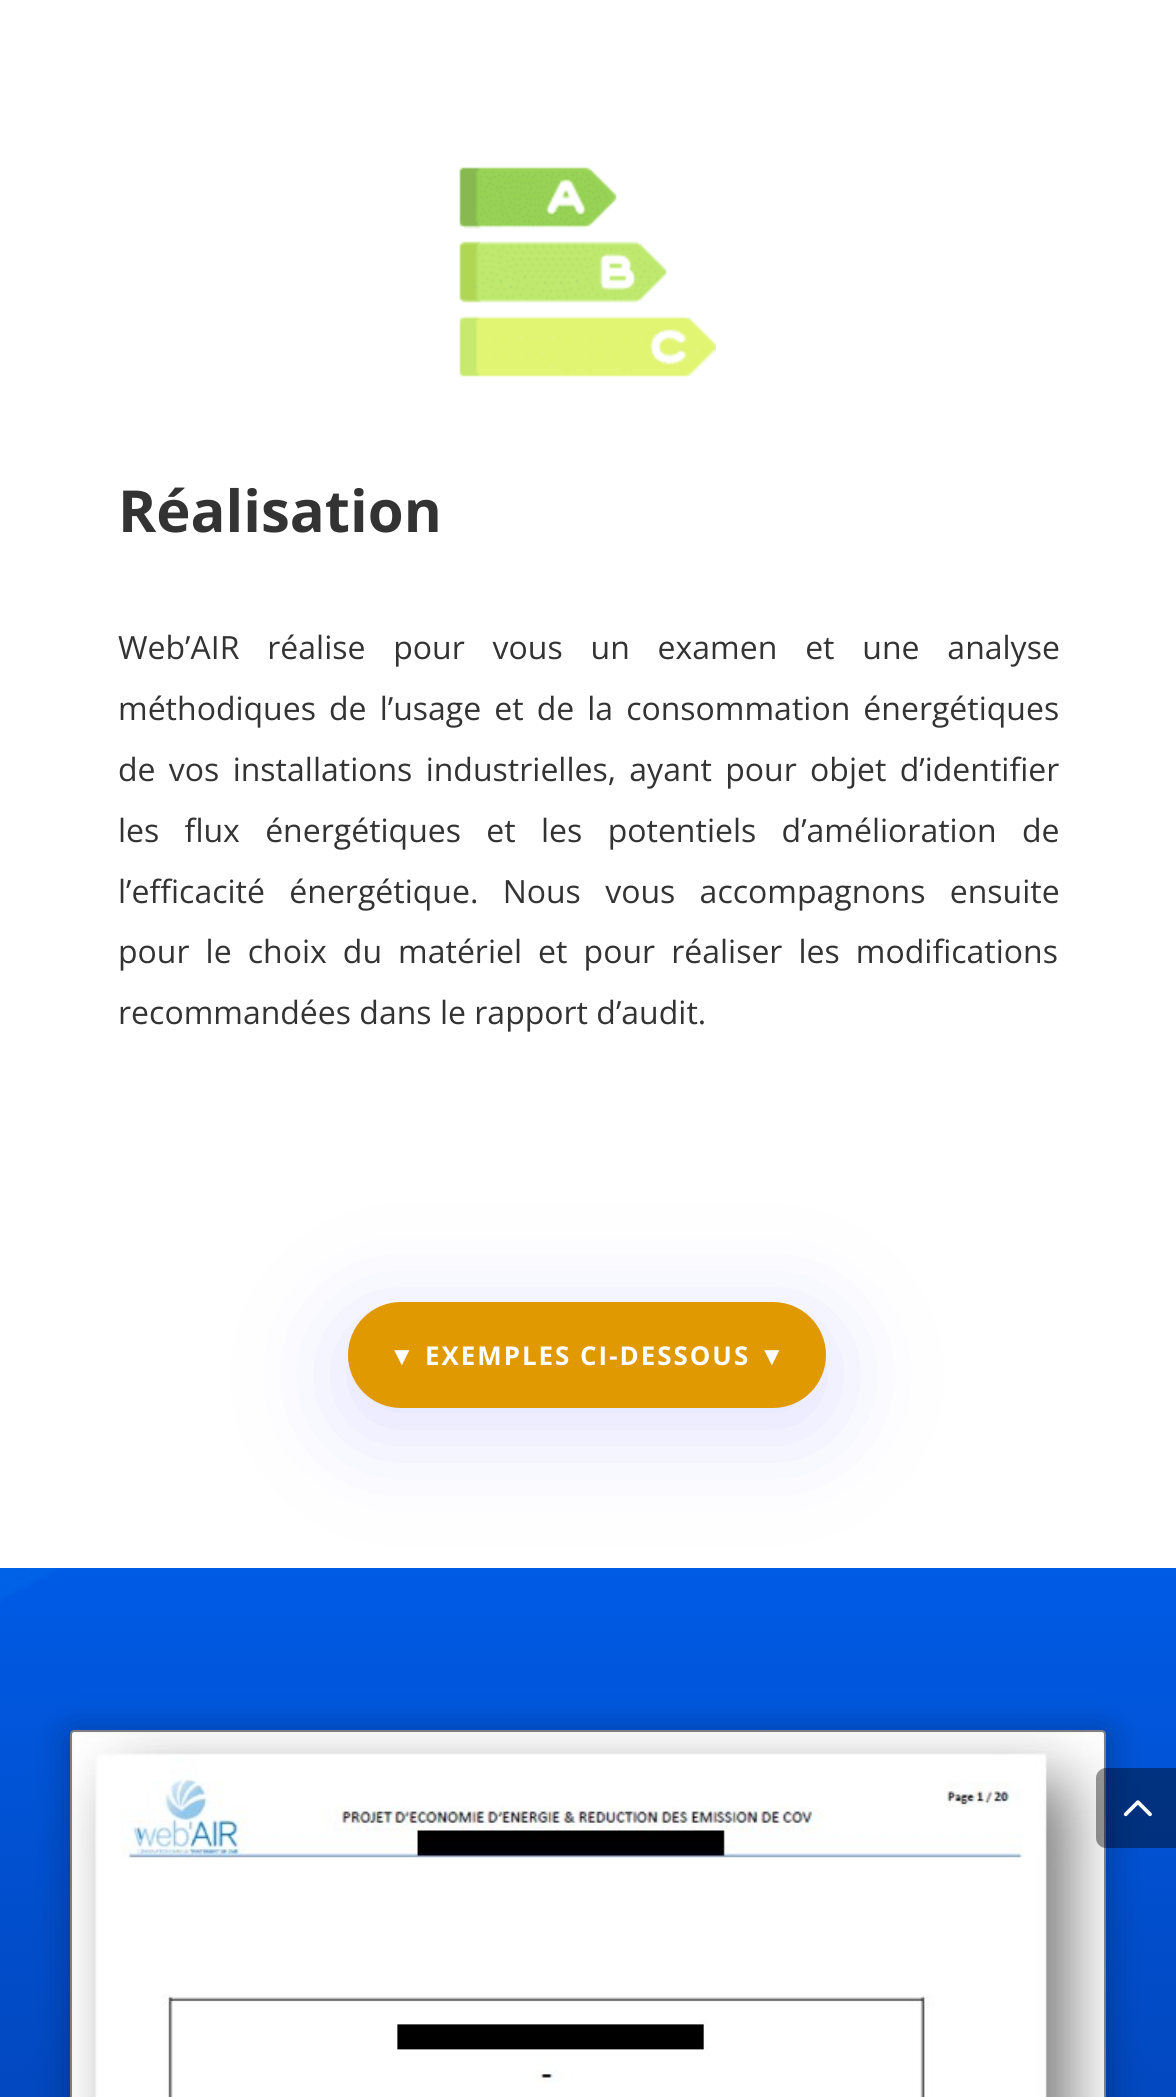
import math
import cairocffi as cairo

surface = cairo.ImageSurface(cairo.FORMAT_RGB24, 1176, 2097)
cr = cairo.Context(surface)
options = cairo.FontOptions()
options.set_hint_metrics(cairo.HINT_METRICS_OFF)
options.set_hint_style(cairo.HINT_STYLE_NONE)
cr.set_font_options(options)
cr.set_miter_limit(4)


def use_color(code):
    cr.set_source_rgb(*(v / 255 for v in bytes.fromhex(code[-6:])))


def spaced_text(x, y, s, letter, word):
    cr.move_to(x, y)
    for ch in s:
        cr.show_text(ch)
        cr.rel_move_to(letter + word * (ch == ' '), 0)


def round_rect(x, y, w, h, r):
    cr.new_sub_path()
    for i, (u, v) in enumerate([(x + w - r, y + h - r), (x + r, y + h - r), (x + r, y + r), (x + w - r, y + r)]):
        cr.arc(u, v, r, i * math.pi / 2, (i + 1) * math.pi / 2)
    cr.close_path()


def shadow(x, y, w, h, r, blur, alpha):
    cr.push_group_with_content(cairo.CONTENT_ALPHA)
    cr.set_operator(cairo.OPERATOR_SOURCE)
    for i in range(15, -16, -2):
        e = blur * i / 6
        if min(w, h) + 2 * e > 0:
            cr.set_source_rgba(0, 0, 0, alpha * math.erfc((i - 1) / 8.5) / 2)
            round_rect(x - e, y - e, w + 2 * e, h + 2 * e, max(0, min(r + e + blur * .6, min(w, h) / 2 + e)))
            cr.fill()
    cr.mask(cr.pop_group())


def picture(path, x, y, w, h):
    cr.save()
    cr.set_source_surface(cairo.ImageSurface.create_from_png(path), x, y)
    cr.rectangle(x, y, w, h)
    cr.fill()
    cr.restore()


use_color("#ffffff")
cr.paint()
picture("img1.png", 459, 167, 257, 210)
cr.select_font_face("Open Sans", cairo.FONT_SLANT_NORMAL, cairo.FONT_WEIGHT_BOLD)
cr.set_font_size(58)
use_color("#333333")
cr.move_to(118, 532)
cr.show_text("Réalisation")
cr.select_font_face("Open Sans")
cr.set_font_size(32)
spaced_text(118, 659, "Web’AIR réalise pour vous un examen et une analyse", 0, 19.5)
spaced_text(118, 720, "méthodiques de l’usage et de la consommation énergétiques", 0, 4.75)
spaced_text(118, 781, "de vos installations industrielles, ayant pour objet d’identifier", 0, 5)
spaced_text(118, 842, "les flux énergétiques et les potentiels d’amélioration de", 0, 17)
spaced_text(118, 903, "l’efficacité énergétique. Nous vous accompagnons ensuite", 0, 16)
spaced_text(118, 963, "pour le choix du matériel et pour réaliser les modifications", 0, 7.75)
cr.move_to(118, 1024)
cr.show_text("recommandées dans le rapport d’audit.")
picture("img2.png", 0, 1568, 1176, 529)
use_color("#b5b5ff")
shadow(338, 1312, 498, 126, 63, 50, 0.38)
use_color("#e09900")
round_rect(348, 1302, 478, 106, 53)
cr.fill()
cr.select_font_face("Liberation Sans", cairo.FONT_SLANT_NORMAL, cairo.FONT_WEIGHT_BOLD)
cr.set_font_size(25.9)
use_color("#ffffff")
spaced_text(389, 1365, "▼", 2, 0)
cr.select_font_face("Open Sans", cairo.FONT_SLANT_NORMAL, cairo.FONT_WEIGHT_BOLD)
spaced_text(425, 1365, "EXEMPLES CI-DESSOUS", 2, 0)
cr.select_font_face("Liberation Sans", cairo.FONT_SLANT_NORMAL, cairo.FONT_WEIGHT_BOLD)
spaced_text(759, 1365, "▼", 2, 0)
use_color("#000000")
shadow(70, 1734, 1036, 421, 4, 18, 0.3)
round_rect(71, 1731, 1034, 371, 3)
use_color("#7f7f7f")
cr.stroke()
picture("img3.png", 72, 1732, 1032, 365)
cr.set_source_rgba(0, 0, 0, 0.4)
cr.new_path()
cr.move_to(1106, 1768)
cr.line_to(1176, 1768)
cr.line_to(1176, 1848)
cr.line_to(1106, 1848)
cr.curve_to(1100.5, 1848, 1096, 1843.5, 1096, 1838)
cr.line_to(1096, 1778)
cr.curve_to(1096, 1772.5, 1100.5, 1768, 1106, 1768)
cr.close_path()
cr.fill()
picture("img4.png", 1123, 1800, 29, 17)
surface.write_to_png("result.png")
